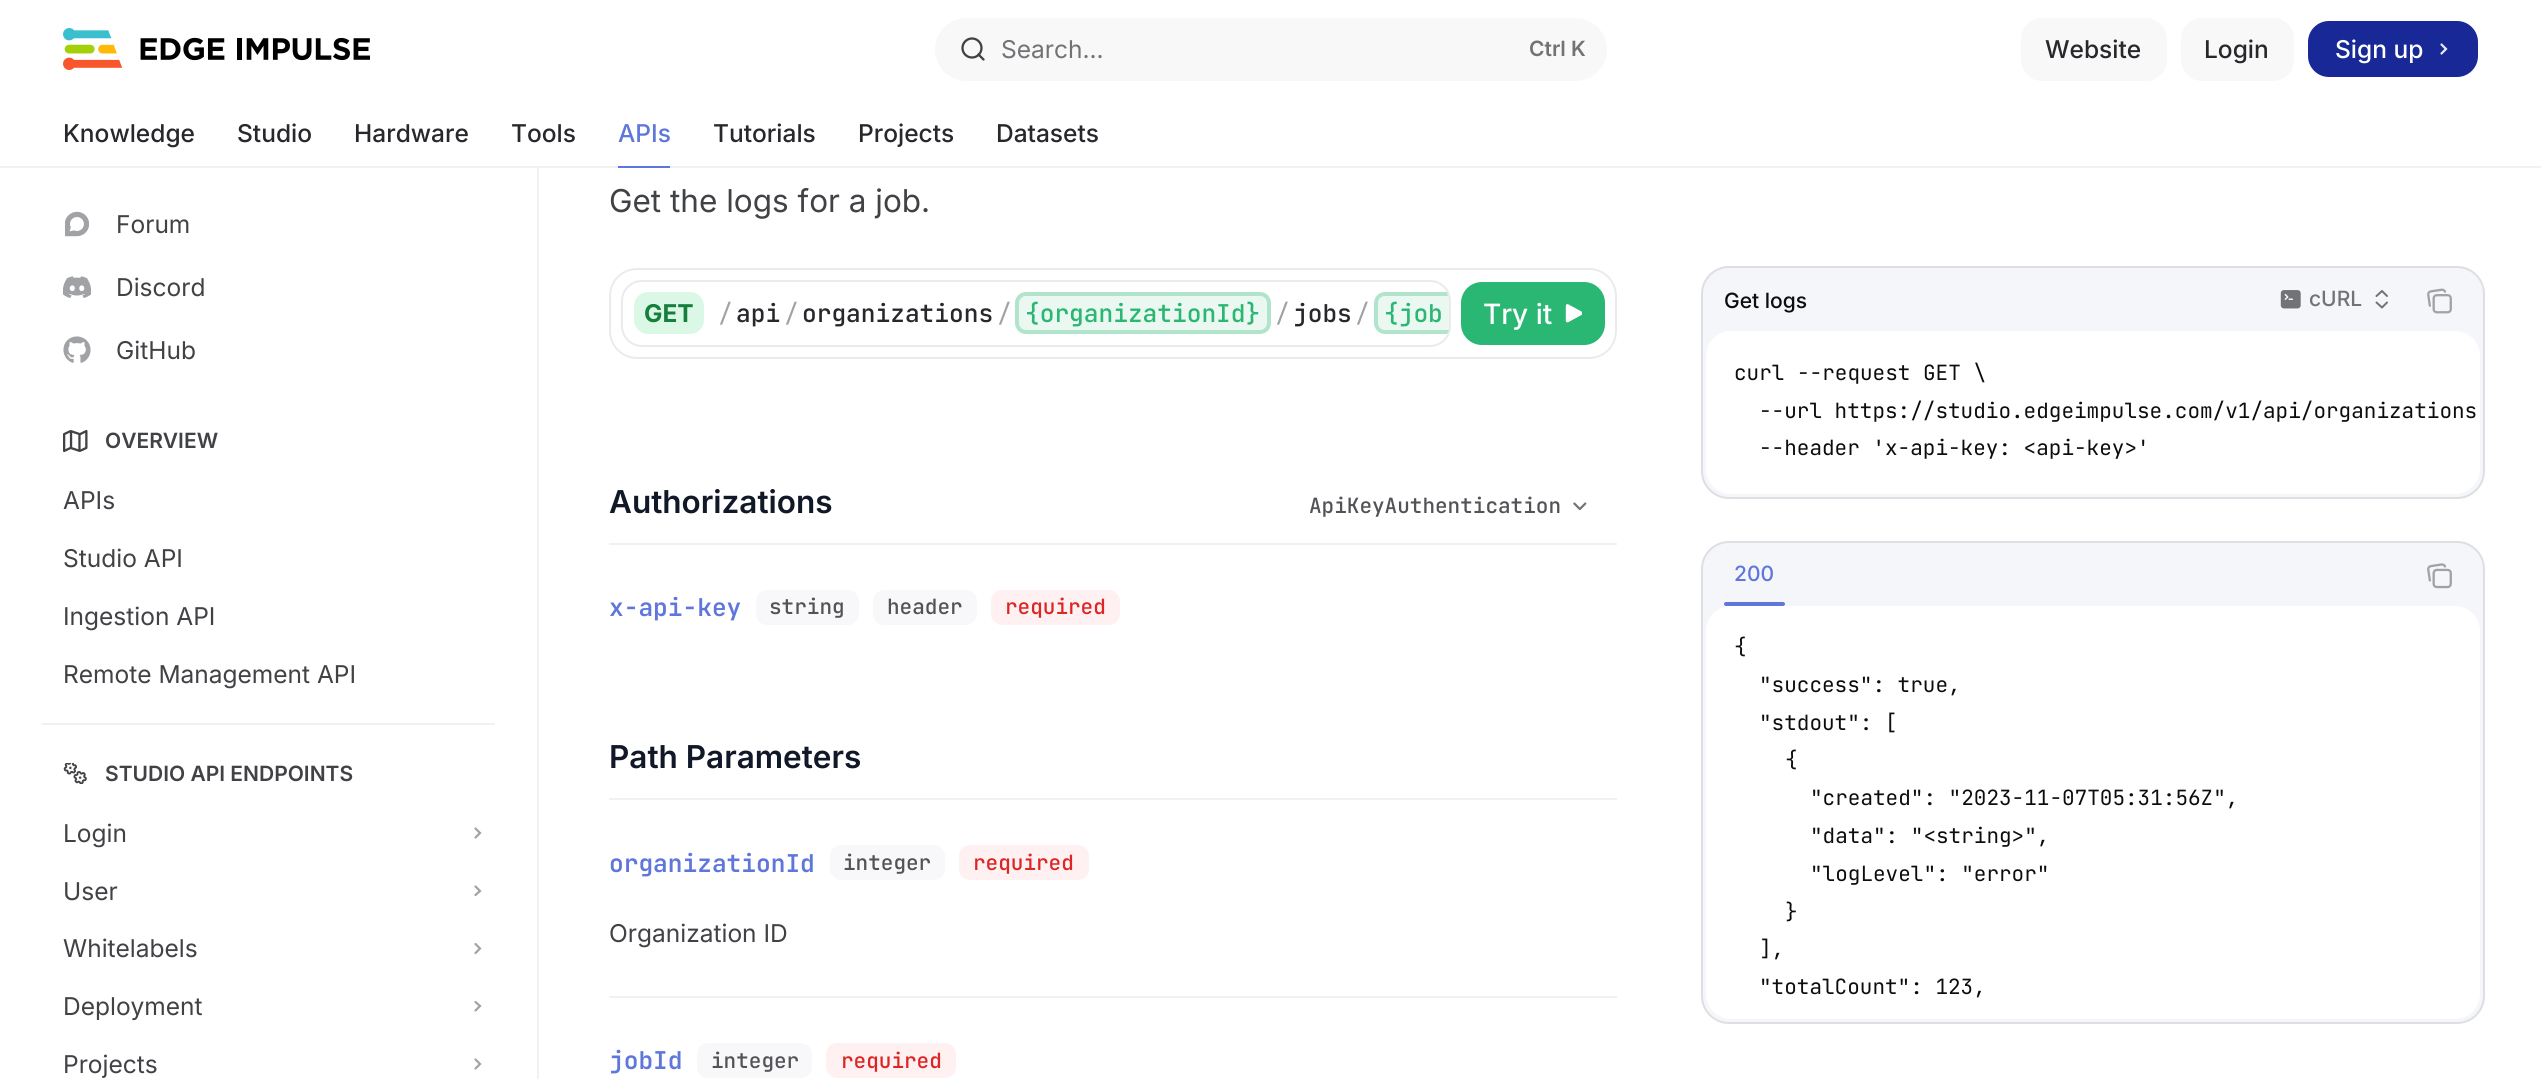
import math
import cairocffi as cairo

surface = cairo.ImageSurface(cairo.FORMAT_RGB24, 2541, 1079)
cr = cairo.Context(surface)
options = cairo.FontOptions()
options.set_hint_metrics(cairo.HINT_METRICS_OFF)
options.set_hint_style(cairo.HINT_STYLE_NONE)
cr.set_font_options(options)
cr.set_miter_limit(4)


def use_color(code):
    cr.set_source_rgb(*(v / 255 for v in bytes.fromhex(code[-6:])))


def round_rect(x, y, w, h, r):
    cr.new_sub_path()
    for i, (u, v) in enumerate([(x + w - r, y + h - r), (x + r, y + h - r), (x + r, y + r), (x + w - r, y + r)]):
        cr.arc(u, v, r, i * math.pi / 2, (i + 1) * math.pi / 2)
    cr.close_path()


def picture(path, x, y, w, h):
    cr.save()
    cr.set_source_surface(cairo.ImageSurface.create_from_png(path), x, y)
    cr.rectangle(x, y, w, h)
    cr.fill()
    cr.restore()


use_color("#ffffff")
cr.paint()
picture("img1.png", 63, 28, 307, 42)
use_color("#f8f8f8")
round_rect(935, 18, 672, 63, 31.5)
cr.fill()
cr.arc(972, 48, 9.5, 0, 2 * math.pi)
use_color("#414245")
cr.set_line_width(2.3)
cr.stroke()
cr.new_path()
cr.move_to(983.5, 59.5)
cr.line_to(978.5, 54.5)
cr.set_line_cap(cairo.LINE_CAP_ROUND)
cr.set_line_join(cairo.LINE_JOIN_ROUND)
cr.stroke()
cr.select_font_face("Inter")
cr.set_font_size(24.5)
use_color("#727376")
cr.move_to(1001, 58)
cr.show_text("Search...")
cr.select_font_face("Inter SemiBold")
cr.set_font_size(21)
cr.move_to(1529, 56)
cr.show_text("Ctrl K")
use_color("#f8f8f8")
round_rect(2021, 18, 146, 63, 21)
cr.fill()
cr.select_font_face("Inter Medium")
cr.set_font_size(24.5)
use_color("#28282c")
cr.move_to(2045, 58)
cr.show_text("Website")
use_color("#f8f8f8")
round_rect(2181, 18, 113, 63, 21)
cr.fill()
use_color("#28282c")
cr.move_to(2204, 58)
cr.show_text("Login")
use_color("#182896")
round_rect(2308, 21, 170, 56, 21)
cr.fill()
use_color("#ffffff")
cr.move_to(2335, 58)
cr.show_text("Sign up")
cr.new_path()
cr.move_to(2441.5, 44.5)
cr.line_to(2446, 49)
cr.line_to(2441.5, 53.5)
use_color("#e8eaf5")
cr.set_line_width(2.2)
cr.set_line_join(cairo.LINE_JOIN_MITER)
cr.stroke()
use_color("#28282c")
cr.move_to(63, 142)
cr.show_text("Knowledge")
cr.move_to(237, 142)
cr.show_text("Studio")
cr.move_to(354, 142)
cr.show_text("Hardware")
cr.move_to(511, 142)
cr.show_text("Tools")
use_color("#5f76db")
cr.move_to(618, 142)
cr.show_text("APIs")
use_color("#f0f1f4")
cr.rectangle(0, 166, 2541, 2)
cr.fill()
use_color("#5f76db")
cr.rectangle(618, 166, 52, 2)
cr.fill()
use_color("#28282c")
cr.move_to(713, 142)
cr.show_text("Tutorials")
cr.move_to(858, 142)
cr.show_text("Projects")
cr.move_to(996, 142)
cr.show_text("Datasets")
use_color("#f0f1f4")
cr.rectangle(537, 168, 2, 911)
cr.fill()
picture("img2.png", 65, 211, 24, 26)
cr.select_font_face("Inter")
use_color("#414245")
cr.move_to(116, 233)
cr.show_text("Forum")
picture("img3.png", 63, 276, 28, 22)
cr.move_to(116, 296)
cr.show_text("Discord")
picture("img4.png", 63, 336, 28, 27)
cr.move_to(116, 359)
cr.show_text("GitHub")
picture("img5.png", 63, 429, 25, 24)
cr.select_font_face("Inter SemiBold")
cr.set_font_size(21)
cr.move_to(105, 448)
cr.show_text("OVERVIEW")
cr.select_font_face("Inter")
cr.set_font_size(24.5)
cr.move_to(63, 509)
cr.show_text("APIs")
cr.move_to(63, 567)
cr.show_text("Studio API")
cr.move_to(63, 625)
cr.show_text("Ingestion API")
cr.move_to(63, 683)
cr.show_text("Remote Management API")
use_color("#f0f1f4")
cr.rectangle(42, 723, 453, 2)
cr.fill()
picture("img6.png", 63, 763, 24, 21)
cr.select_font_face("Inter SemiBold")
cr.set_font_size(21)
use_color("#414245")
cr.move_to(105, 781)
cr.show_text("STUDIO API ENDPOINTS")
cr.select_font_face("Inter")
cr.set_font_size(24.5)
cr.move_to(63, 842)
cr.show_text("Login")
cr.new_path()
cr.move_to(475.5, 828.5)
cr.line_to(480, 833)
cr.line_to(475.5, 837.5)
use_color("#a1a2a5")
cr.stroke()
use_color("#414245")
cr.move_to(63, 900)
cr.show_text("User")
cr.new_path()
cr.move_to(475.5, 886.5)
cr.line_to(480, 891)
cr.line_to(475.5, 895)
use_color("#a1a2a5")
cr.stroke()
use_color("#414245")
cr.move_to(63, 957)
cr.show_text("Whitelabels")
cr.new_path()
cr.move_to(475.5, 944)
cr.line_to(480, 948.5)
cr.line_to(475.5, 953)
use_color("#a1a2a5")
cr.stroke()
use_color("#414245")
cr.move_to(63, 1015)
cr.show_text("Deployment")
cr.new_path()
cr.move_to(475.5, 1002)
cr.line_to(480, 1006)
cr.line_to(475.5, 1010.5)
use_color("#a1a2a5")
cr.stroke()
use_color("#414245")
cr.move_to(63, 1073)
cr.show_text("Projects")
cr.new_path()
cr.move_to(475.5, 1059.5)
cr.line_to(480, 1064)
cr.line_to(475.5, 1068.5)
use_color("#a1a2a5")
cr.stroke()
cr.set_font_size(31.5)
use_color("#414245")
cr.move_to(609, 212)
cr.show_text("Get the logs for a job.")
round_rect(610, 269, 1006, 89, 27)
use_color("#eaebed")
cr.set_line_width(2)
cr.set_line_cap(cairo.LINE_CAP_BUTT)
cr.stroke()
round_rect(622, 281, 828, 65, 20)
cr.stroke()
use_color("#dbf8e6")
round_rect(634, 292, 70, 42, 14)
cr.fill()
cr.select_font_face("Inter", cairo.FONT_SLANT_NORMAL, cairo.FONT_WEIGHT_BOLD)
cr.set_font_size(24.5)
use_color("#15803d")
cr.move_to(644, 322)
cr.show_text("GET")
cr.select_font_face("JetBrains Mono")
use_color("#a1a2a5")
cr.move_to(718, 322)
cr.show_text("/")
cr.select_font_face("JetBrains Mono Medium")
use_color("#28282c")
cr.move_to(736, 322)
cr.show_text("api")
cr.select_font_face("JetBrains Mono")
use_color("#a1a2a5")
cr.move_to(784, 322)
cr.show_text("/")
cr.select_font_face("JetBrains Mono Medium")
use_color("#28282c")
cr.move_to(802, 322)
cr.show_text("organizations")
cr.select_font_face("JetBrains Mono")
use_color("#a1a2a5")
cr.move_to(997, 322)
cr.show_text("/")
use_color("#eaf8f1")
round_rect(1015, 292, 256, 42, 11)
cr.fill()
round_rect(1017, 294, 252, 38, 9)
cr.set_source_rgba(0.165, 0.714, 0.451, 0.3)
cr.set_line_width(4)
cr.stroke()
cr.select_font_face("JetBrains Mono Medium")
use_color("#2ab673")
cr.move_to(1025, 322)
cr.show_text("{organizationId}")
cr.select_font_face("JetBrains Mono")
use_color("#a1a2a5")
cr.move_to(1275, 322)
cr.show_text("/")
cr.select_font_face("JetBrains Mono Medium")
use_color("#28282c")
cr.move_to(1293, 322)
cr.show_text("jobs")
cr.select_font_face("JetBrains Mono")
use_color("#a1a2a5")
cr.move_to(1355, 322)
cr.show_text("/")
cr.save()
round_rect(623, 282, 826, 63, 19)
cr.clip()
cr.set_source_rgba(0.165, 0.714, 0.451, 0.1)
cr.new_path()
cr.move_to(1385, 292)
cr.line_to(1449, 292)
cr.line_to(1449, 334)
cr.line_to(1385, 334)
cr.curve_to(1379, 334, 1374, 329, 1374, 323)
cr.line_to(1374, 303)
cr.curve_to(1374, 297, 1379, 292, 1385, 292)
cr.close_path()
cr.fill()
cr.restore()
cr.set_source_rgba(0.165, 0.714, 0.451, 0.3)
cr.new_path()
cr.move_to(1385, 292)
cr.curve_to(1379, 292, 1374, 297, 1374, 303)
cr.line_to(1374, 323)
cr.curve_to(1374, 329, 1379, 334, 1385, 334)
cr.line_to(1447, 334)
cr.line_to(1449, 330)
cr.line_to(1385, 330)
cr.curve_to(1381, 330, 1378, 327, 1378, 323)
cr.line_to(1378, 303)
cr.curve_to(1378, 299, 1381, 296, 1385, 296)
cr.line_to(1448, 296)
cr.line_to(1447, 292)
cr.close_path()
cr.fill()
cr.select_font_face("JetBrains Mono Medium")
use_color("#2ab673")
cr.move_to(1384, 322)
cr.show_text("{job")
round_rect(1461, 282, 144, 63, 21)
cr.fill()
cr.select_font_face("Inter Medium")
cr.set_font_size(28)
use_color("#ffffff")
cr.move_to(1483, 324)
cr.show_text("Try it")
picture("img7.png", 1565, 304, 17, 19)
use_color("#f0f1f4")
cr.rectangle(609, 543, 1008, 2)
cr.fill()
cr.select_font_face("Inter SemiBold")
cr.set_font_size(31.5)
use_color("#111827")
cr.move_to(609, 513)
cr.show_text("Authorizations")
cr.select_font_face("JetBrains Mono Medium")
cr.set_font_size(21)
use_color("#525356")
cr.move_to(1309, 513)
cr.show_text("ApiKeyAuthentication")
picture("img8.png", 1573, 502, 14, 9)
cr.select_font_face("JetBrains Mono SemiBold")
cr.set_font_size(24.5)
use_color("#5f76db")
cr.move_to(609, 616)
cr.show_text("x-api-key")
use_color("#f8f8fa")
round_rect(756, 590, 103, 35, 11)
cr.fill()
cr.select_font_face("JetBrains Mono Medium")
cr.set_font_size(21)
use_color("#525356")
cr.move_to(769, 614)
cr.show_text("string")
use_color("#f8f8fa")
round_rect(873, 590, 104, 35, 11)
cr.fill()
use_color("#525356")
cr.move_to(887, 614)
cr.show_text("header")
use_color("#fff1f1")
round_rect(991, 590, 129, 35, 11)
cr.fill()
use_color("#dc2626")
cr.move_to(1005, 614)
cr.show_text("required")
use_color("#f0f1f4")
cr.rectangle(609, 798, 1008, 2)
cr.fill()
cr.select_font_face("Inter SemiBold")
cr.set_font_size(31.5)
use_color("#111827")
cr.move_to(609, 768)
cr.show_text("Path Parameters")
use_color("#f0f1f4")
cr.rectangle(609, 996, 1008, 2)
cr.fill()
cr.select_font_face("JetBrains Mono SemiBold")
cr.set_font_size(24.5)
use_color("#5f76db")
cr.move_to(609, 872)
cr.show_text("organizationId")
use_color("#f8f8fa")
round_rect(830, 845, 115, 35, 11)
cr.fill()
cr.select_font_face("JetBrains Mono Medium")
cr.set_font_size(21)
use_color("#525356")
cr.move_to(843, 870)
cr.show_text("integer")
use_color("#fff1f1")
round_rect(959, 845, 130, 35, 11)
cr.fill()
use_color("#dc2626")
cr.move_to(973, 870)
cr.show_text("required")
cr.select_font_face("Inter")
cr.set_font_size(24.5)
use_color("#414245")
cr.move_to(609, 942)
cr.show_text("Organization ID")
cr.select_font_face("JetBrains Mono SemiBold")
use_color("#5f76db")
cr.move_to(609, 1069)
cr.show_text("jobId")
use_color("#f8f8fa")
round_rect(697, 1043, 115, 35, 11)
cr.fill()
cr.select_font_face("JetBrains Mono Medium")
cr.set_font_size(21)
use_color("#525356")
cr.move_to(711, 1068)
cr.show_text("integer")
use_color("#fff1f1")
round_rect(826, 1043, 130, 35, 11)
cr.fill()
use_color("#dc2626")
cr.move_to(841, 1068)
cr.show_text("required")
use_color("#f5f6f9")
round_rect(1701, 266, 784, 233, 28)
cr.fill()
round_rect(1702, 267, 782, 231, 27)
cr.set_source_rgba(0.051, 0.051, 0.063, 0.1)
cr.set_line_width(2)
cr.stroke()
cr.select_font_face("Inter Medium")
use_color("#0d0d10")
cr.move_to(1724, 308)
cr.show_text("Get logs")
picture("img9.png", 2280, 290, 21, 19)
use_color("#727376")
cr.move_to(2309, 306)
cr.show_text("cURL")
cr.new_path()
cr.move_to(2376.5, 302.5)
cr.line_to(2382, 307.5)
cr.line_to(2387, 302.5)
cr.move_to(2376.5, 296)
cr.line_to(2382, 291)
cr.line_to(2387, 296)
cr.set_line_cap(cairo.LINE_CAP_ROUND)
cr.set_line_join(cairo.LINE_JOIN_ROUND)
cr.stroke()
picture("img10.png", 2427, 288, 25, 26)
use_color("#ffffff")
round_rect(1706, 331, 774, 163, 25)
cr.fill()
cr.select_font_face("JetBrains Mono")
use_color("#0d0d10")
cr.move_to(1734, 380)
cr.show_text("curl --request GET \\")
cr.move_to(1759, 418)
cr.show_text("--url https://studio.edgeimpulse.com/v1/api/organizations")
cr.move_to(1759, 455)
cr.show_text("--header 'x-api-key: <api-key>'")
use_color("#f5f6f9")
round_rect(1701, 541, 784, 483, 28)
cr.fill()
round_rect(1702, 542, 782, 481, 27)
cr.set_source_rgba(0.051, 0.051, 0.063, 0.1)
cr.set_line_cap(cairo.LINE_CAP_BUTT)
cr.set_line_join(cairo.LINE_JOIN_MITER)
cr.stroke()
cr.select_font_face("Inter Medium")
use_color("#5f76db")
cr.move_to(1734, 581)
cr.show_text("200")
round_rect(1724, 602, 61, 4, 2)
cr.fill()
picture("img11.png", 2427, 563, 25, 26)
use_color("#ffffff")
round_rect(1706, 606, 774, 413, 25)
cr.fill()
cr.select_font_face("JetBrains Mono")
use_color("#0d0d10")
cr.move_to(1734, 654)
cr.show_text("{")
cr.move_to(1759, 692)
cr.show_text("\"success\": true,")
cr.move_to(1759, 730)
cr.show_text("\"stdout\": [")
cr.move_to(1785, 767)
cr.show_text("{")
cr.move_to(1810, 805)
cr.show_text("\"created\": \"2023-11-07T05:31:56Z\",")
cr.move_to(1810, 843)
cr.show_text("\"data\": \"<string>\",")
cr.move_to(1810, 881)
cr.show_text("\"logLevel\": \"error\"")
cr.move_to(1785, 919)
cr.show_text("}")
cr.move_to(1759, 956)
cr.show_text("],")
cr.move_to(1759, 994)
cr.show_text("\"totalCount\": 123,")
surface.write_to_png("result.png")
